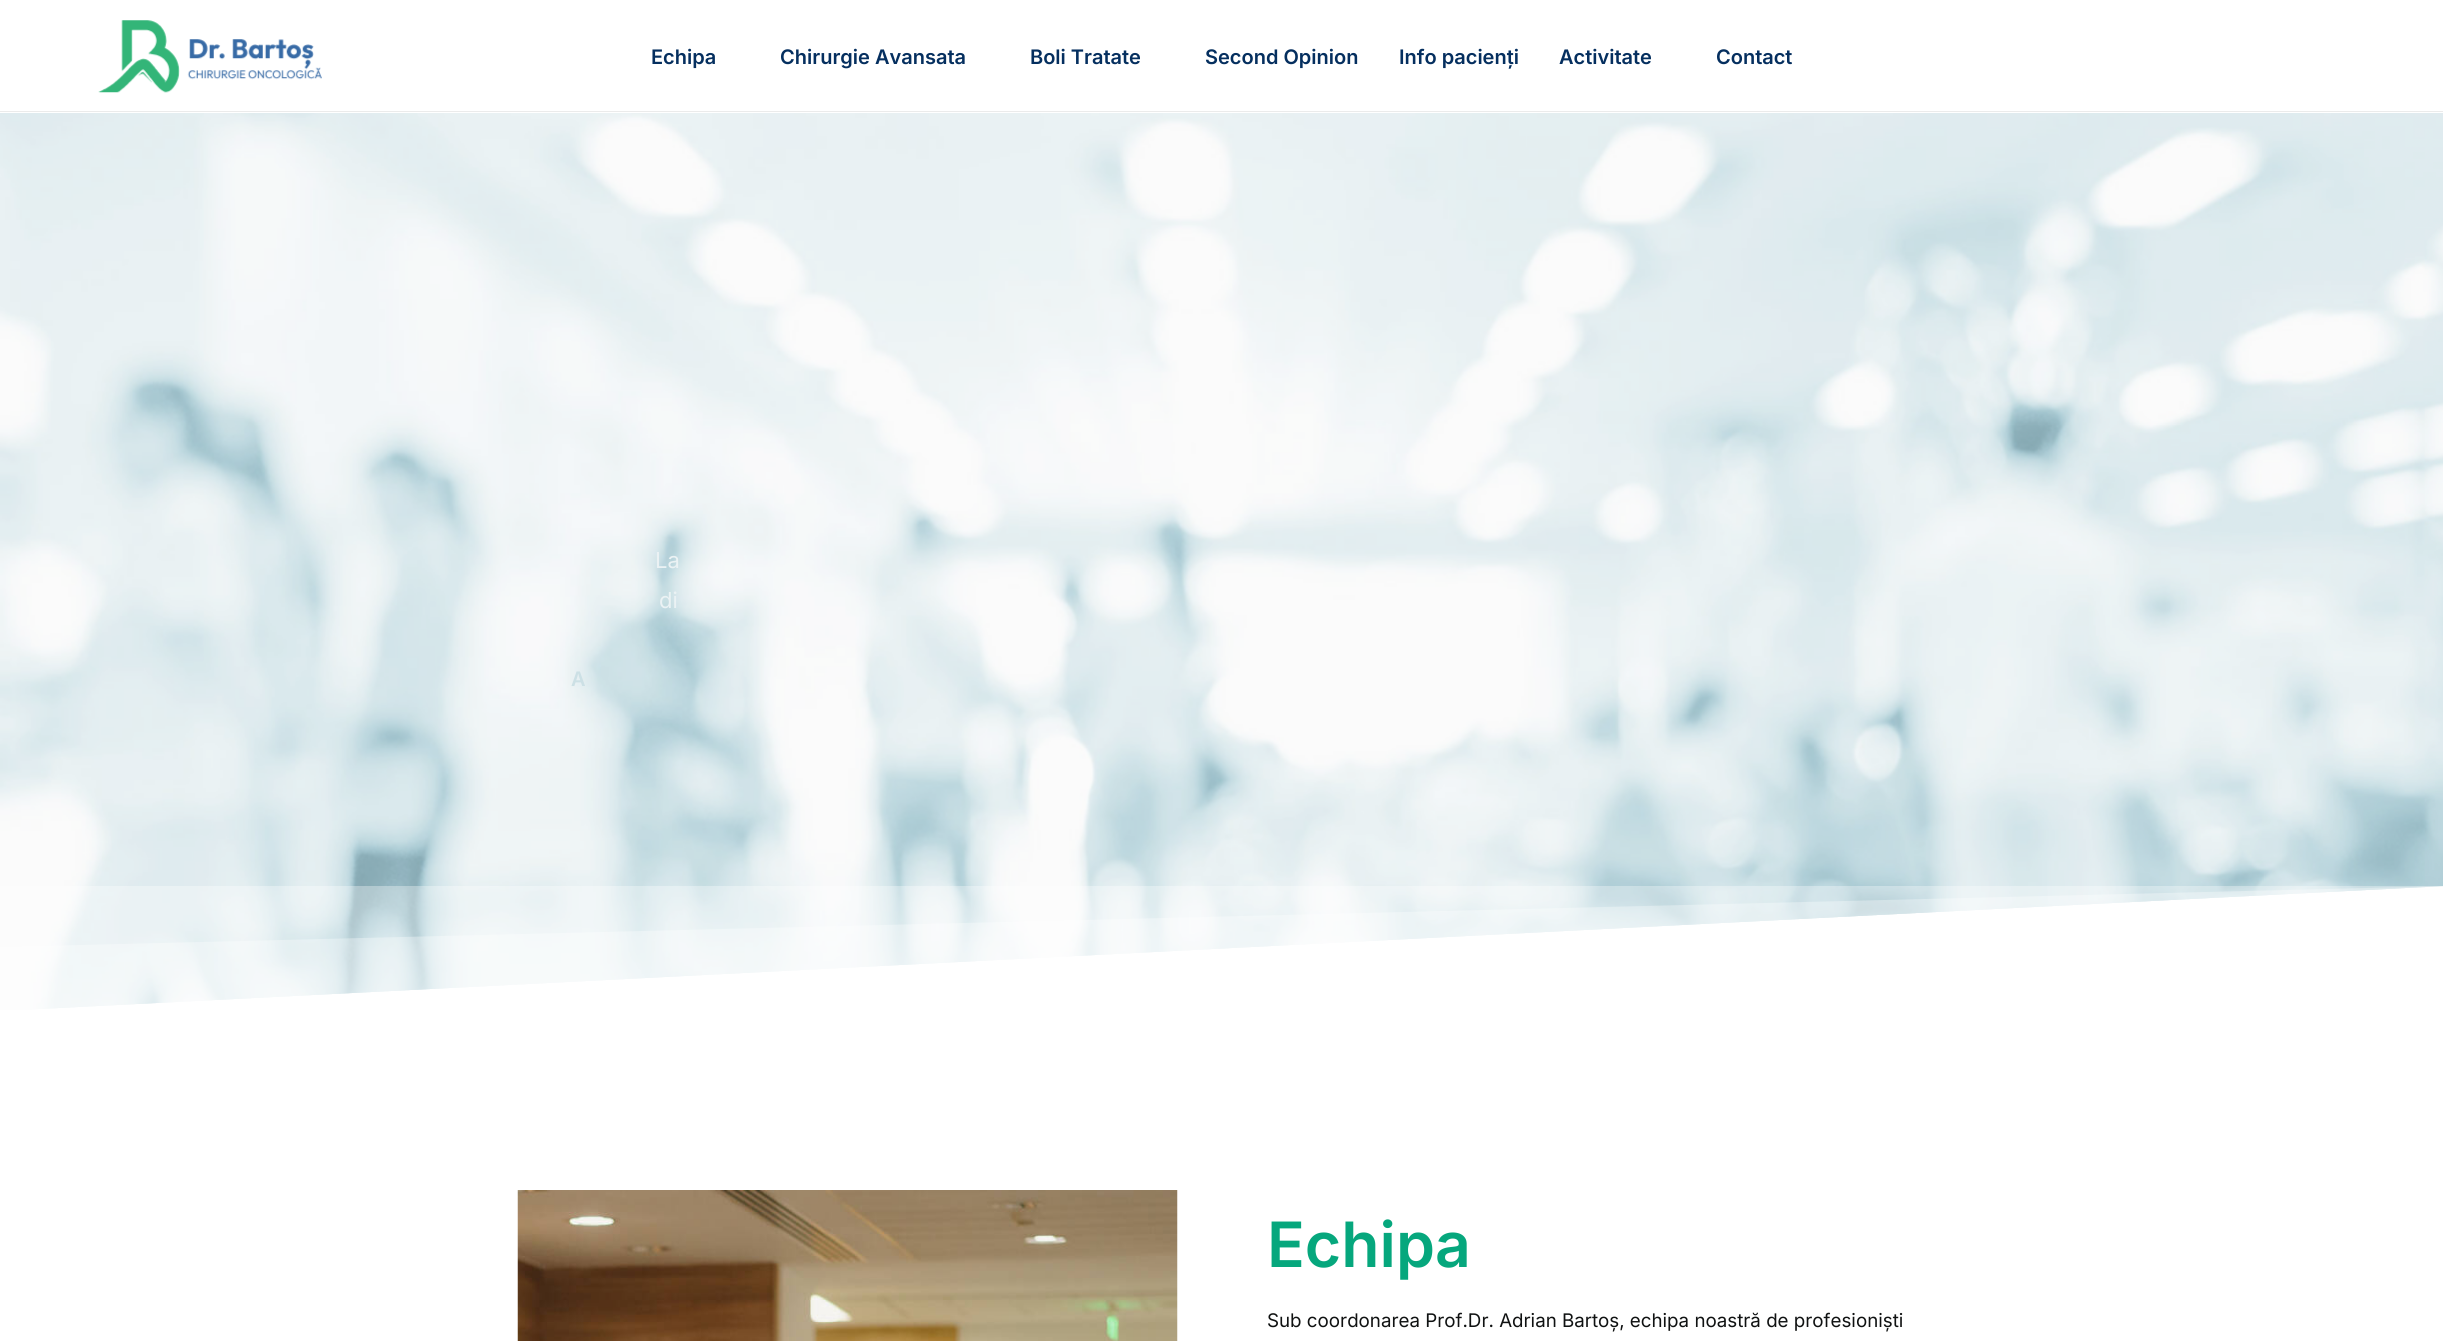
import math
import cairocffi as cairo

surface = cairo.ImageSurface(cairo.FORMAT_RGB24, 2443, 1341)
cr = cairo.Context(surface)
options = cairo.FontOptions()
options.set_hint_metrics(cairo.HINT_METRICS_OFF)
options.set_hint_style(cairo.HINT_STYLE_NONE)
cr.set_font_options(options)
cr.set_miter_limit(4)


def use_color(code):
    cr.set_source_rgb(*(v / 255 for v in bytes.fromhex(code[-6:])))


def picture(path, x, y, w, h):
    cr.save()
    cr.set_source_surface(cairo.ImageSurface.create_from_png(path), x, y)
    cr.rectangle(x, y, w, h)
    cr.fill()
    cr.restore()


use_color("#ffffff")
cr.paint()
picture("img1.png", 98, 20, 224, 73)
cr.select_font_face("Inter SemiBold")
cr.set_font_size(20)
use_color("#052f5f")
cr.move_to(651, 64)
cr.show_text("Echipa")
cr.move_to(780, 64)
cr.show_text("Chirurgie Avansata")
cr.move_to(1030, 64)
cr.show_text("Boli Tratate")
cr.move_to(1205, 64)
cr.show_text("Second Opinion")
cr.move_to(1399, 64)
cr.show_text("Info pacienți")
cr.move_to(1559, 64)
cr.show_text("Activitate")
cr.move_to(1716, 64)
cr.show_text("Contact")
use_color("#ebebeb")
cr.rectangle(0, 111, 2443, 1)
cr.fill()
picture("img2.png", 0, 113, 2443, 897)
cr.select_font_face("Inter")
cr.set_font_size(22)
use_color("#ebf2f4")
cr.move_to(655, 568)
cr.show_text("La")
cr.move_to(659, 608)
cr.show_text("di")
cr.select_font_face("Inter SemiBold")
cr.set_font_size(20)
use_color("#cce0e5")
cr.move_to(571, 686)
cr.show_text("A")
use_color("#ffffff")
cr.new_path()
cr.move_to(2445, 1011)
cr.line_to(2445, 886)
cr.line_to(0, 1011)
cr.close_path()
cr.fill()
cr.set_source_rgba(1, 1, 1, 0.33)
cr.new_path()
cr.move_to(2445, 886)
cr.line_to(0, 886)
cr.line_to(0, 1011)
cr.fill()
cr.new_path()
cr.move_to(0, 947)
cr.line_to(0, 1011)
cr.line_to(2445, 886)
cr.close_path()
cr.fill()
picture("img3.png", 517, 1190, 661, 151)
cr.set_font_size(62.5)
use_color("#06a77d")
cr.move_to(1267, 1267)
cr.show_text("Echipa")
cr.select_font_face("Inter")
cr.set_font_size(18.75)
use_color("#101212")
cr.move_to(1267, 1327)
cr.show_text("Sub coordonarea Prof.Dr. Adrian Bartoș, echipa noastră de profesioniști")
surface.write_to_png("result.png")
